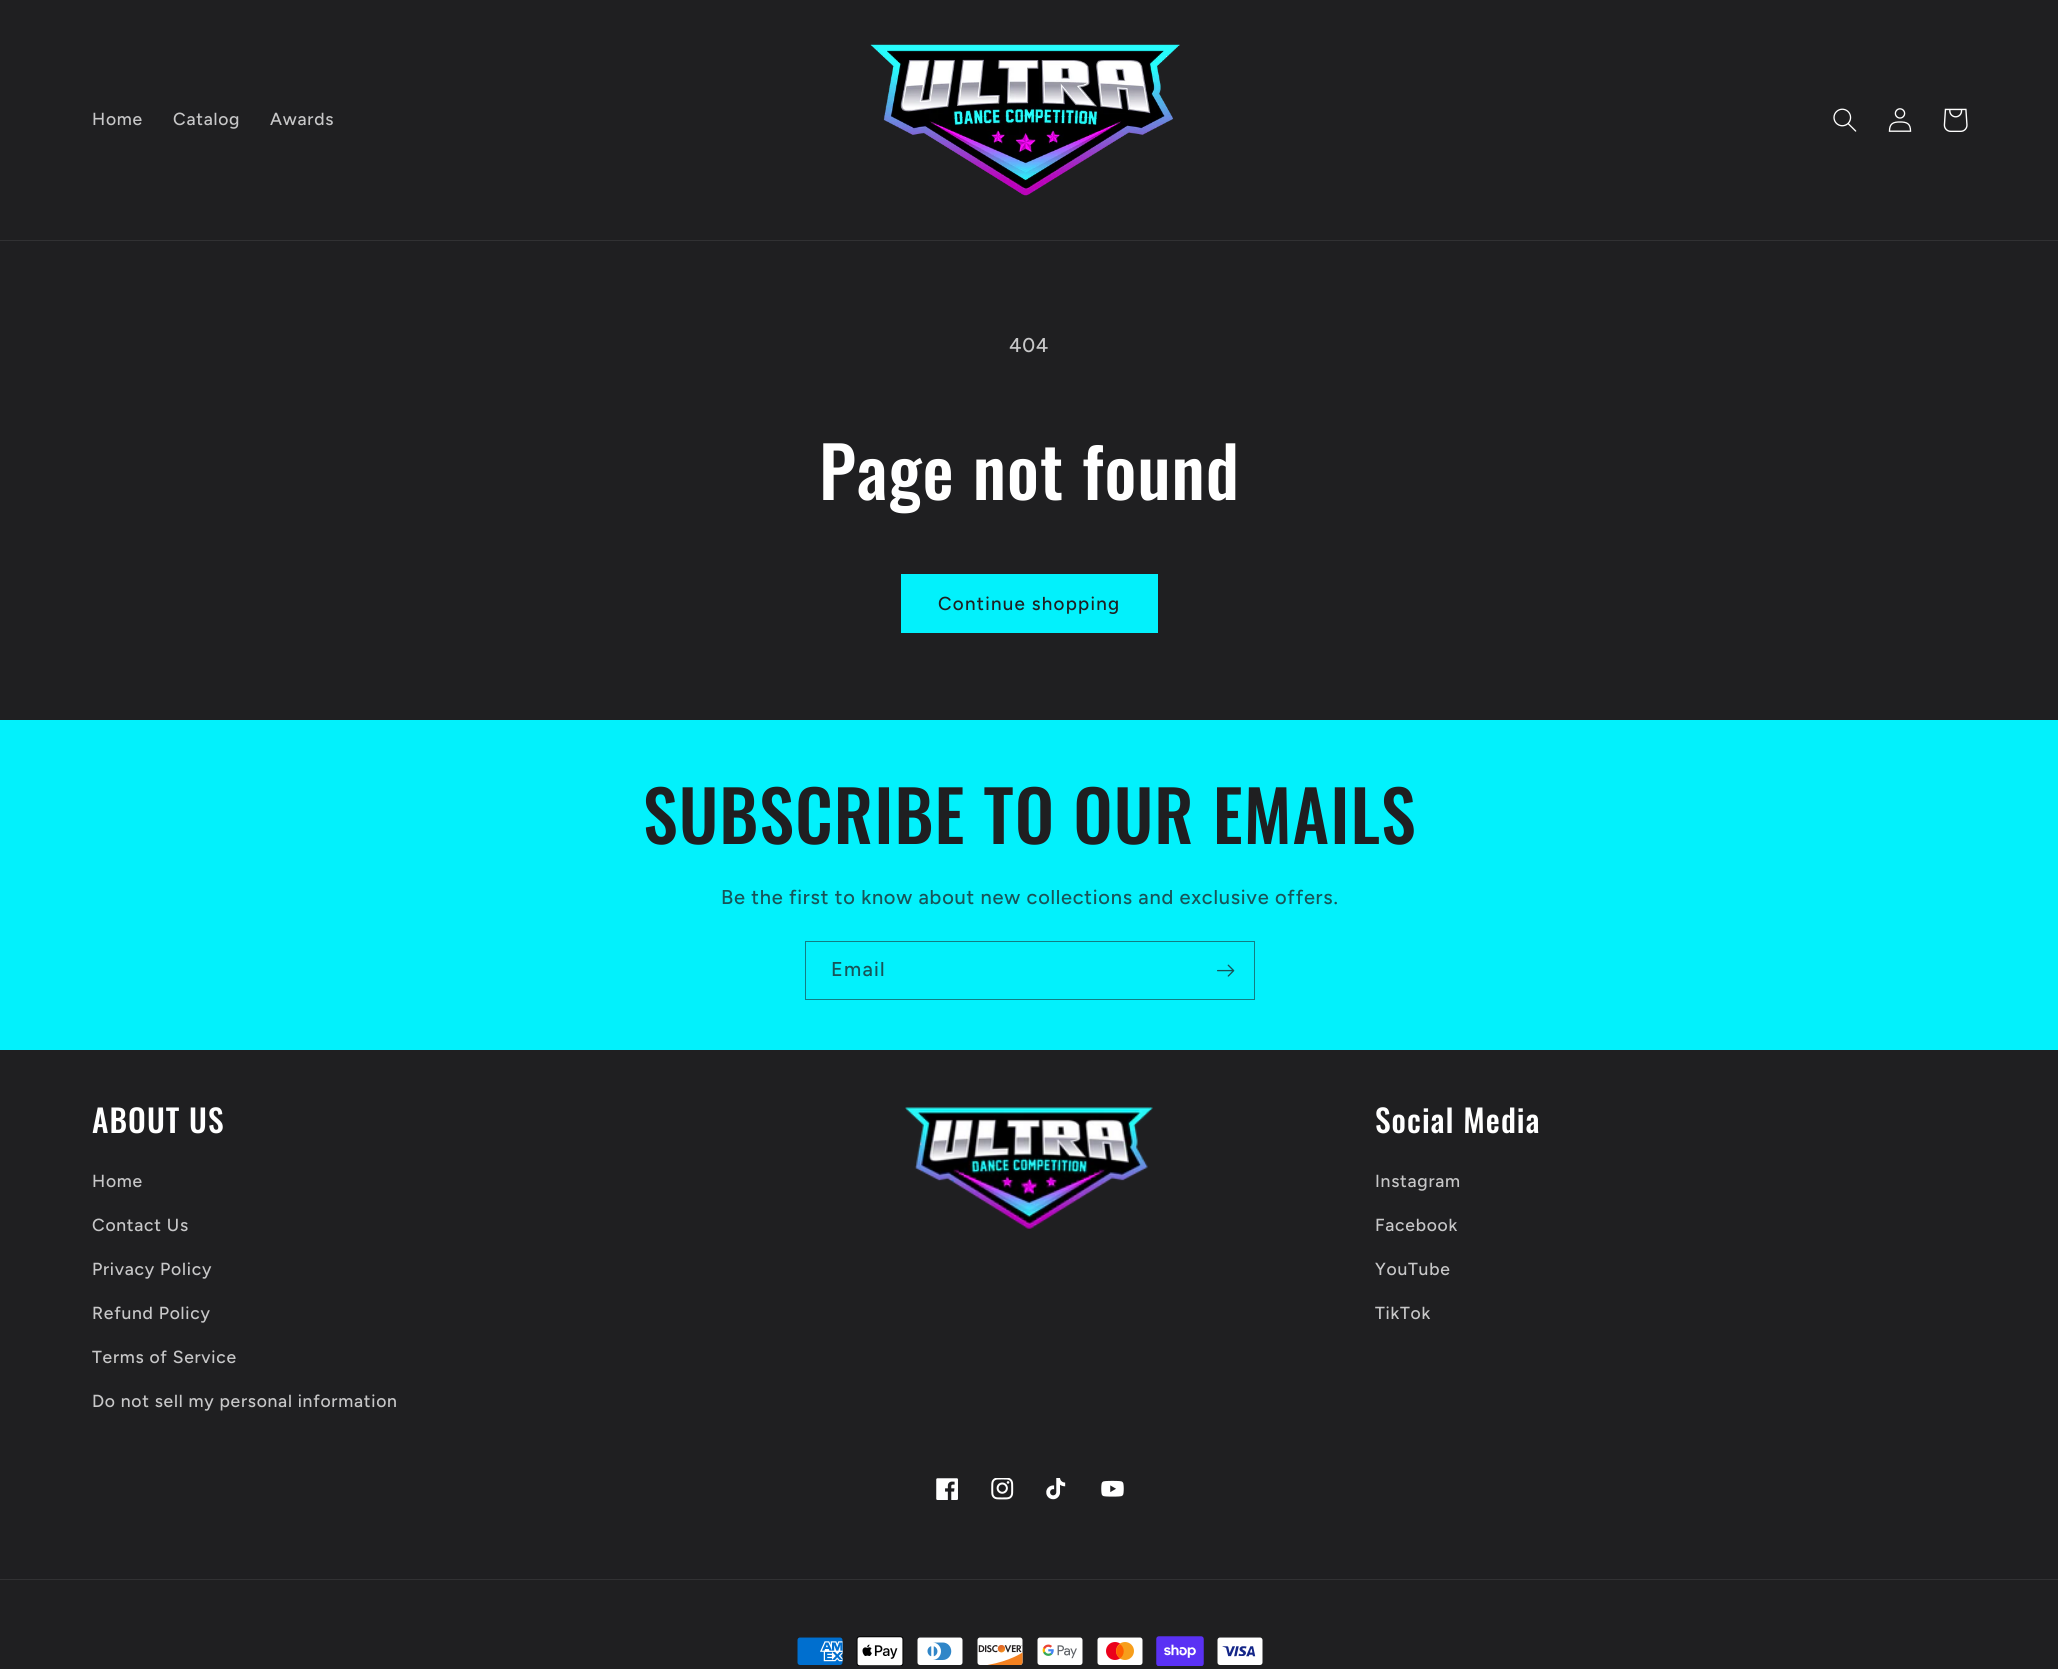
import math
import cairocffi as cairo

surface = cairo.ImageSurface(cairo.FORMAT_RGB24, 2058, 1669)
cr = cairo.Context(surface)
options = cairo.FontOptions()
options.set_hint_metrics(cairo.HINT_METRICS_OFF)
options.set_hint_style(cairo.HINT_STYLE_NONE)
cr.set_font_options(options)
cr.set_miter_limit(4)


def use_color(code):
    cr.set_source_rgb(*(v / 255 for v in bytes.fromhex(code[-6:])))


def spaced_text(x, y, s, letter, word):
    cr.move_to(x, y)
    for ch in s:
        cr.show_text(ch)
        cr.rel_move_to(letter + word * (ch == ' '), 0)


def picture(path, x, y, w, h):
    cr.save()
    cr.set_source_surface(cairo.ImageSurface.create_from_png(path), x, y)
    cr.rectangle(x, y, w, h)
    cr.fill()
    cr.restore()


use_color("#1f1f21")
cr.paint()
use_color("#313133")
cr.rectangle(0, 240, 2058, 1)
cr.fill()
cr.select_font_face("Figtree Medium")
cr.set_font_size(17.5)
use_color("#c7c7c8")
spaced_text(92, 125, "Home", 0.75, 0)
spaced_text(173, 125, "Catalog", 0.75, 0)
spaced_text(270, 125, "Awards", 0.75, 0)
picture("img1.png", 870, 44, 310, 152)
picture("img2.png", 1833, 108, 24, 24)
picture("img3.png", 1888, 108, 24, 24)
picture("img4.png", 1943, 108, 25, 24)
cr.set_font_size(20)
spaced_text(1009, 352, "404", 0.75, 0)
cr.select_font_face("Oswald Medium")
cr.set_font_size(70)
use_color("#ffffff")
spaced_text(819, 500, "Page not found", 1.05, 0)
use_color("#02f1fc")
cr.rectangle(901, 574, 257, 59)
cr.fill()
cr.select_font_face("Figtree Medium")
cr.set_font_size(18.75)
use_color("#1f1f21")
spaced_text(938, 610, "Continue shopping", 1.25, 0)
use_color("#02f1fc")
cr.rectangle(0, 720, 2058, 330)
cr.fill()
cr.select_font_face("Oswald Medium")
cr.set_font_size(70)
use_color("#1f1f21")
spaced_text(643, 844, "SUBSCRIBE TO OUR EMAILS", 1.05, 0)
cr.select_font_face("Figtree Medium")
cr.set_font_size(20)
use_color("#185458")
spaced_text(721, 904, "Be the first to know about new collections and exclusive offers.", 0.75, 0)
cr.rectangle(805.5, 941.5, 449, 58)
use_color("#127e84")
cr.set_line_width(1)
cr.stroke()
use_color("#185458")
spaced_text(831, 976, "Email", 1.25, 0)
picture("img5.png", 1217, 964, 18, 13)
cr.select_font_face("Oswald Medium")
cr.set_font_size(31.5)
use_color("#ffffff")
spaced_text(92, 1133, "ABOUT US", 1.05, 0)
cr.select_font_face("Figtree Medium")
cr.set_font_size(17.5)
use_color("#c7c7c8")
spaced_text(92, 1187, "Home", 0.75, 0)
spaced_text(92, 1231, "Contact Us", 0.75, 0)
spaced_text(92, 1275, "Privacy Policy", 0.75, 0)
spaced_text(92, 1319, "Refund Policy", 0.75, 0)
spaced_text(92, 1363, "Terms of Service", 0.75, 0)
spaced_text(92, 1407, "Do not sell my personal information", 0.75, 0)
picture("img6.png", 905, 1107, 248, 122)
cr.select_font_face("Oswald Medium")
cr.set_font_size(31.5)
use_color("#ffffff")
spaced_text(1375, 1133, "Social Media", 1.05, 0)
cr.select_font_face("Figtree Medium")
cr.set_font_size(17.5)
use_color("#c7c7c8")
spaced_text(1375, 1187, "Instagram", 0.75, 0)
spaced_text(1375, 1231, "Facebook", 0.75, 0)
spaced_text(1375, 1275, "YouTube", 0.75, 0)
spaced_text(1375, 1319, "TikTok", 0.75, 0)
picture("img7.png", 936, 1478, 22, 22)
picture("img8.png", 991, 1478, 23, 22)
picture("img9.png", 1046, 1478, 20, 22)
picture("img10.png", 1101, 1480, 23, 17)
use_color("#313133")
cr.rectangle(0, 1579, 2058, 1)
cr.fill()
picture("img11.png", 797, 1637, 46, 28)
picture("img12.png", 856, 1636, 48, 30)
picture("img13.png", 917, 1637, 46, 28)
picture("img14.png", 977, 1637, 46, 28)
picture("img15.png", 1037, 1637, 46, 28)
picture("img16.png", 1097, 1637, 46, 28)
picture("img17.png", 1156, 1636, 48, 30)
picture("img18.png", 1217, 1637, 46, 28)
surface.write_to_png("result.png")
